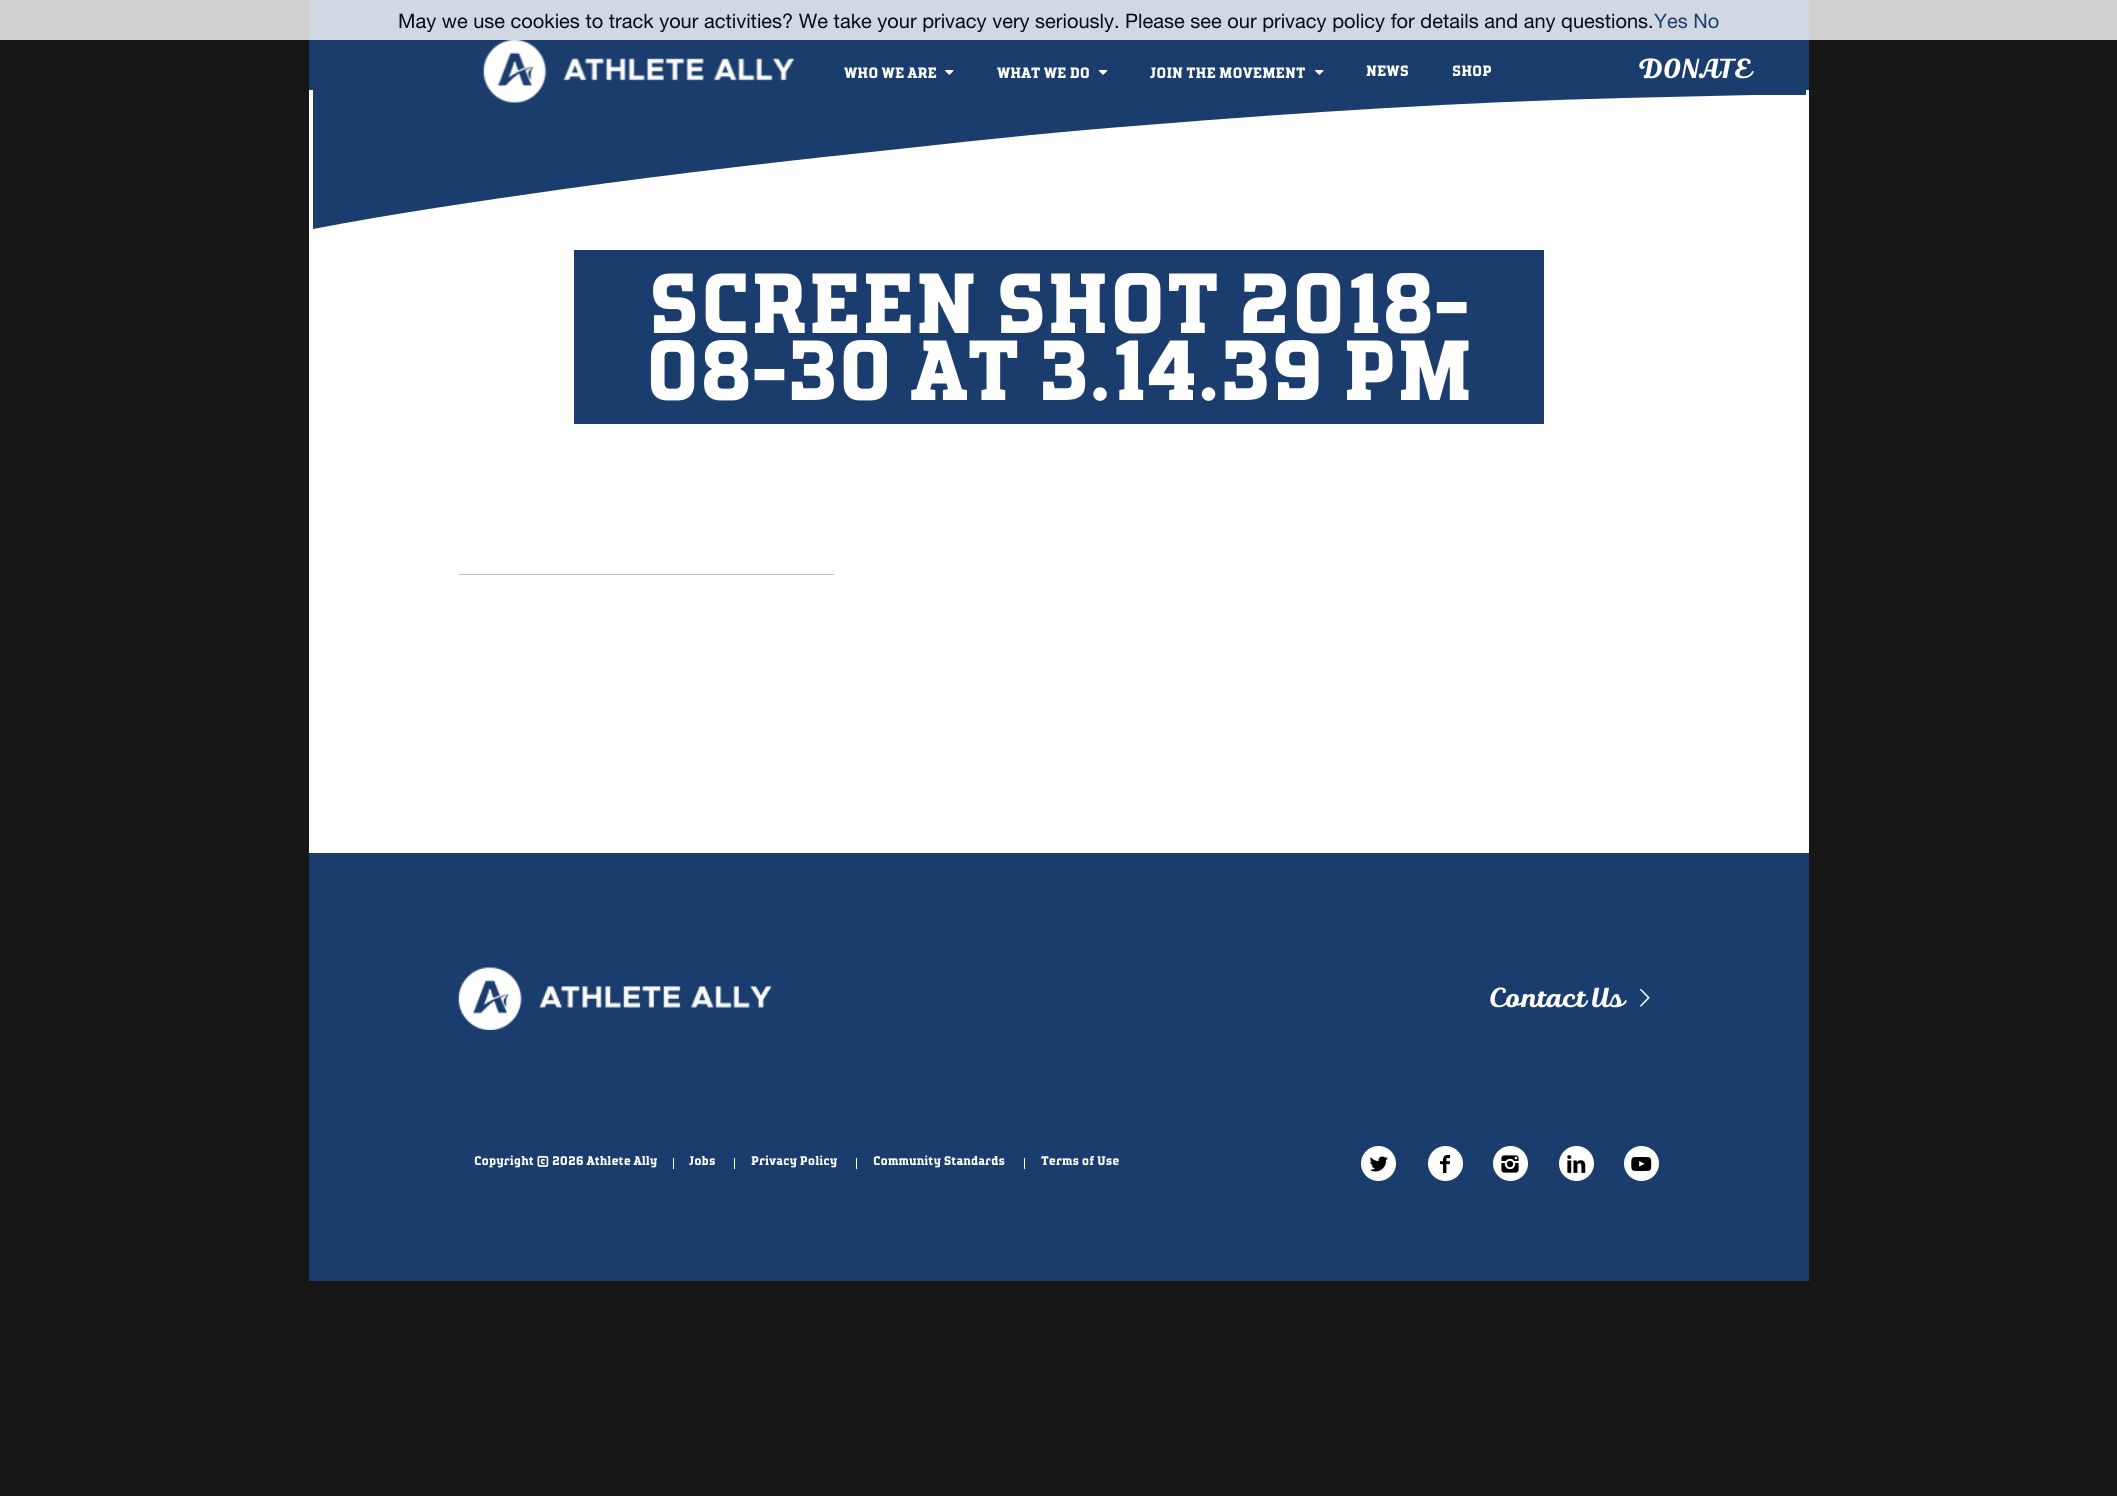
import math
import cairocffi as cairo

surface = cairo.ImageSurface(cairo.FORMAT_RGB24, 2117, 1496)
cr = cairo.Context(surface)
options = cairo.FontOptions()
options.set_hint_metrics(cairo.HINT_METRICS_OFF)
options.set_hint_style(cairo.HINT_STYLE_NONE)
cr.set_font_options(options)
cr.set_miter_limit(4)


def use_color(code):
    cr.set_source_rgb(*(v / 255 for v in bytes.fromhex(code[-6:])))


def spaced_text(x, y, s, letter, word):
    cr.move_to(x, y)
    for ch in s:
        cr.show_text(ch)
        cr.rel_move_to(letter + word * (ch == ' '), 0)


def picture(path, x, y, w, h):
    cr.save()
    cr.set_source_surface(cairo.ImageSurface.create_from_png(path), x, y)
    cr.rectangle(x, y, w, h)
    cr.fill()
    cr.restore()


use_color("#171717")
cr.paint()
use_color("#1a3d6d")
cr.rectangle(309, 0, 1500, 90)
cr.fill()
use_color("#ffffff")
cr.rectangle(309, 90, 1500, 763)
cr.fill()
use_color("#1a3d6d")
cr.new_path()
cr.move_to(313, 0)
cr.line_to(313, 229)
cr.curve_to(396, 213, 480, 201, 564, 189)
cr.curve_to(679, 173, 793, 160, 908, 148)
cr.curve_to(988, 139, 1067, 131, 1146, 125)
cr.curve_to(1305, 112, 1464, 102, 1623, 98)
cr.line_to(1752, 95)
cr.line_to(1806, 95)
cr.line_to(1806, 0)
cr.close_path()
cr.fill()
cr.set_source_rgba(1, 1, 1, 0.8)
cr.rectangle(0, 0, 2117, 40)
cr.fill()
cr.select_font_face("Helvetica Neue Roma")
cr.set_font_size(20)
use_color("#050c16")
cr.move_to(398, 28)
cr.show_text("May we use cookies to track your activities? We take your privacy very seriously. Please see our privacy policy for details and any questions.")
use_color("#1c3e6c")
cr.move_to(1654, 28)
cr.show_text("Yes No")
picture("img1.png", 483, 40, 311, 63)
cr.select_font_face("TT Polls", cairo.FONT_SLANT_NORMAL, cairo.FONT_WEIGHT_BOLD)
cr.set_font_size(15)
use_color("#ffffff")
cr.move_to(844, 78)
cr.show_text("WHO WE ARE")
picture("img2.png", 945, 70, 9, 5)
cr.move_to(997, 78)
cr.show_text("WHAT WE DO")
picture("img3.png", 1098, 70, 10, 5)
cr.move_to(1150, 78)
cr.show_text("JOIN THE MOVEMENT")
picture("img2.png", 1315, 70, 9, 5)
cr.move_to(1366, 76)
cr.show_text("NEWS")
cr.move_to(1452, 76)
cr.show_text("SHOP")
cr.select_font_face("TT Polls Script", cairo.FONT_SLANT_NORMAL, cairo.FONT_WEIGHT_BOLD)
cr.set_font_size(27.5)
cr.move_to(1638, 78)
cr.show_text("DONATE")
use_color("#1a3d6d")
cr.rectangle(574, 250, 970, 174)
cr.fill()
cr.select_font_face("TT Polls", cairo.FONT_SLANT_NORMAL, cairo.FONT_WEIGHT_BOLD)
cr.set_font_size(85)
use_color("#ffffff")
cr.move_to(648, 333)
cr.show_text("SCREEN SHOT 2018-")
cr.move_to(645, 400)
cr.show_text("08-30 AT 3.14.39 PM")
use_color("#bfbfbf")
cr.rectangle(459, 574, 375, 1)
cr.fill()
use_color("#1a3d6d")
cr.rectangle(309, 853, 1500, 428)
cr.fill()
picture("img4.png", 458, 967, 314, 63)
cr.select_font_face("TT Polls Script", cairo.FONT_SLANT_NORMAL, cairo.FONT_WEIGHT_BOLD)
cr.set_font_size(27.5)
use_color("#ffffff")
spaced_text(1489, 1007, "Contact Us", 0, -1)
picture("img5.png", 1640, 988, 10, 19)
cr.select_font_face("TT Polls", cairo.FONT_SLANT_NORMAL, cairo.FONT_WEIGHT_BOLD)
cr.set_font_size(12.5)
cr.move_to(474, 1165)
cr.show_text("Copyright © 2026 Athlete Ally")
cr.rectangle(673, 1158, 1, 11)
cr.fill()
cr.move_to(689, 1165)
cr.show_text("Jobs")
cr.rectangle(734, 1158, 1, 11)
cr.fill()
cr.move_to(751, 1165)
cr.show_text("Privacy Policy")
cr.rectangle(856, 1158, 1, 11)
cr.fill()
cr.move_to(873, 1165)
cr.show_text("Community Standards")
cr.rectangle(1024, 1158, 1, 11)
cr.fill()
cr.move_to(1041, 1165)
cr.show_text("Terms of Use")
cr.new_path()
cr.arc(1378.5, 1163.5, 17.5, 0, 2 * math.pi)
cr.fill()
picture("img6.png", 1369, 1156, 19, 16)
cr.arc(1445.5, 1163.5, 17.5, 0, 2 * math.pi)
cr.fill()
picture("img7.png", 1440, 1155, 10, 18)
cr.arc(1510.5, 1163.5, 17.5, 0, 2 * math.pi)
cr.fill()
picture("img8.png", 1501, 1155, 18, 18)
cr.arc(1576.5, 1163.5, 17.5, 0, 2 * math.pi)
cr.fill()
picture("img9.png", 1567, 1155, 19, 18)
cr.arc(1641.5, 1163.5, 17.5, 0, 2 * math.pi)
cr.fill()
picture("img10.png", 1631, 1157, 21, 15)
surface.write_to_png("result.png")
